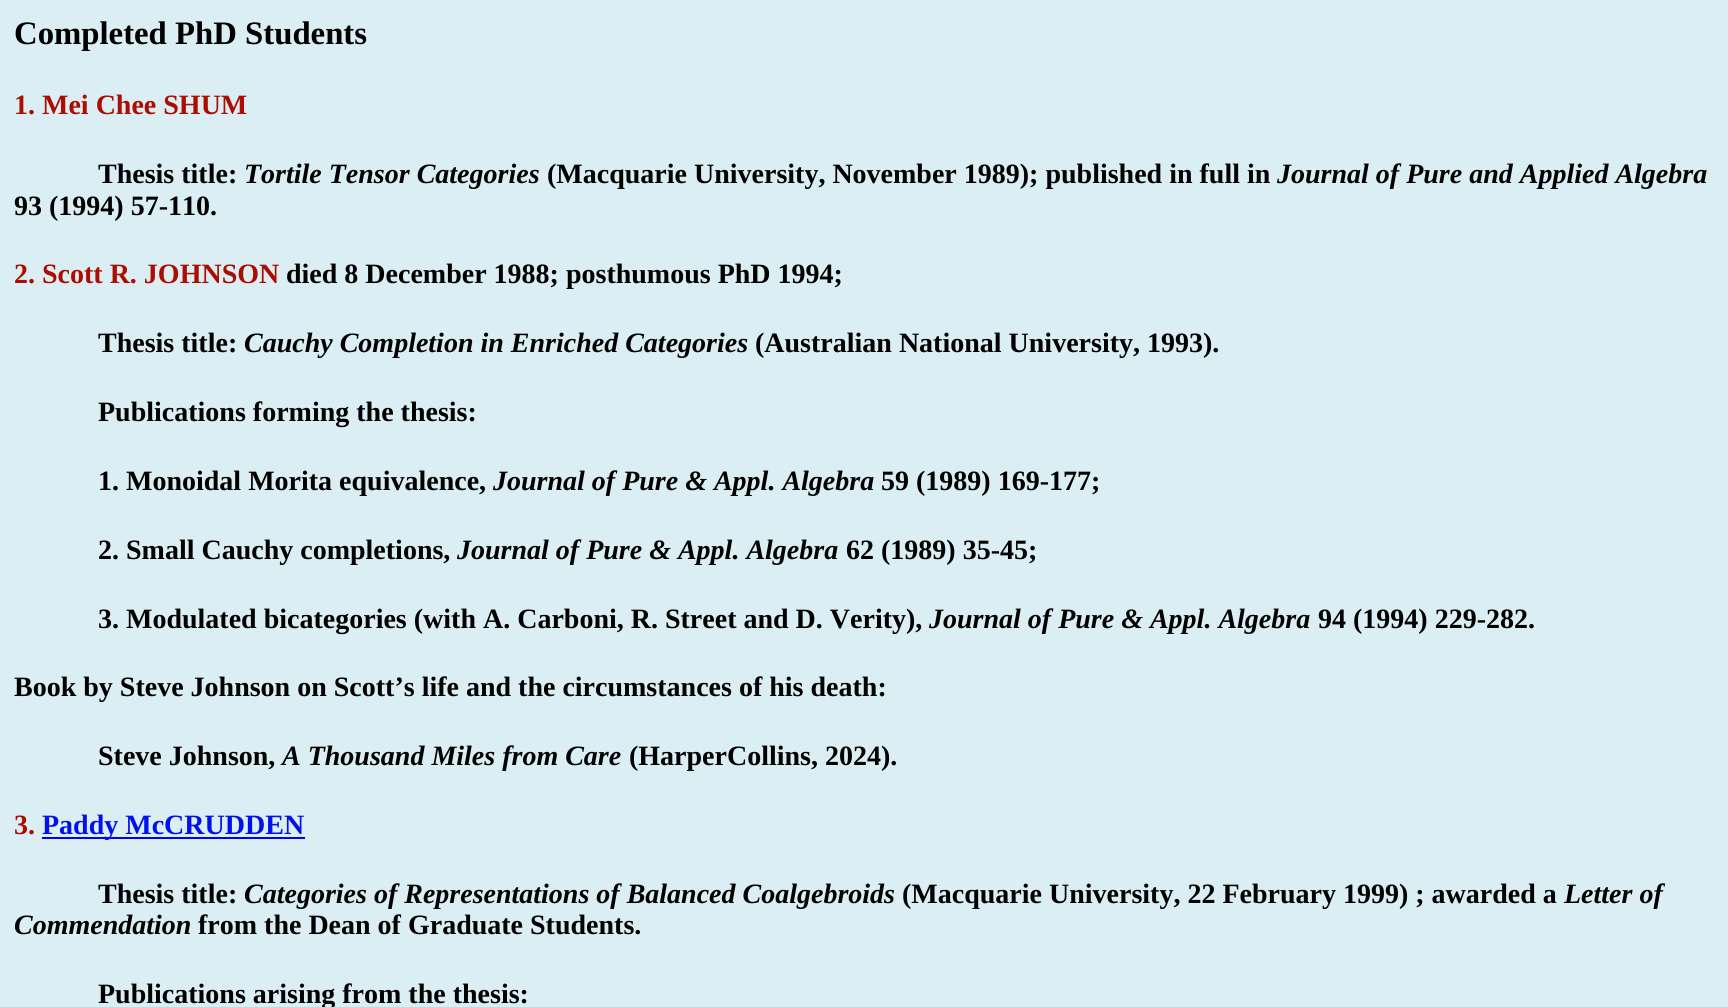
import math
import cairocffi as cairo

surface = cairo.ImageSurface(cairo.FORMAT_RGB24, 1728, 1007)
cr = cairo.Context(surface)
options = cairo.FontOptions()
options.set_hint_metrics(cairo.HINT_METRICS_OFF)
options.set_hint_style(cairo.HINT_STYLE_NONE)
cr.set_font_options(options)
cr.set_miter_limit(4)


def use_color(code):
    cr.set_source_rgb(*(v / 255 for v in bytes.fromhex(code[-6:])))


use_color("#daeef3")
cr.paint()
cr.select_font_face("Liberation Serif", cairo.FONT_SLANT_NORMAL, cairo.FONT_WEIGHT_BOLD)
cr.set_font_size(32.75)
use_color("#000000")
cr.move_to(14, 44)
cr.show_text("Completed PhD Students")
cr.set_font_size(28)
use_color("#ac0d02")
cr.move_to(14, 114)
cr.show_text("1. Mei Chee SHUM")
use_color("#000000")
cr.move_to(98, 183)
cr.show_text("Thesis title:")
cr.select_font_face("Liberation Serif", cairo.FONT_SLANT_ITALIC, cairo.FONT_WEIGHT_BOLD)
cr.move_to(244, 183)
cr.show_text("Tortile Tensor Categories")
cr.select_font_face("Liberation Serif", cairo.FONT_SLANT_NORMAL, cairo.FONT_WEIGHT_BOLD)
cr.move_to(547, 183)
cr.show_text("(Macquarie University, November 1989); published in full in")
cr.select_font_face("Liberation Serif", cairo.FONT_SLANT_ITALIC, cairo.FONT_WEIGHT_BOLD)
cr.move_to(1277, 183)
cr.show_text("Journal of Pure and Applied Algebra")
cr.select_font_face("Liberation Serif", cairo.FONT_SLANT_NORMAL, cairo.FONT_WEIGHT_BOLD)
cr.move_to(14, 215)
cr.show_text("93 (1994) 57-110.")
use_color("#ac0d02")
cr.move_to(14, 283)
cr.show_text("2. Scott R. JOHNSON")
use_color("#000000")
cr.move_to(286, 283)
cr.show_text("died 8 December 1988; posthumous PhD 1994;")
cr.move_to(98, 352)
cr.show_text("Thesis title:")
cr.select_font_face("Liberation Serif", cairo.FONT_SLANT_ITALIC, cairo.FONT_WEIGHT_BOLD)
cr.move_to(244, 352)
cr.show_text("Cauchy Completion in Enriched Categories")
cr.select_font_face("Liberation Serif", cairo.FONT_SLANT_NORMAL, cairo.FONT_WEIGHT_BOLD)
cr.move_to(755, 352)
cr.show_text("(Australian National University, 1993).")
cr.move_to(98, 421)
cr.show_text("Publications forming the thesis:")
cr.move_to(98, 490)
cr.show_text("1. Monoidal Morita equivalence,")
cr.select_font_face("Liberation Serif", cairo.FONT_SLANT_ITALIC, cairo.FONT_WEIGHT_BOLD)
cr.move_to(493, 490)
cr.show_text("Journal of Pure & Appl. Algebra")
cr.select_font_face("Liberation Serif", cairo.FONT_SLANT_NORMAL, cairo.FONT_WEIGHT_BOLD)
cr.move_to(881, 490)
cr.show_text("59 (1989) 169-177;")
cr.move_to(98, 559)
cr.show_text("2. Small Cauchy completions,")
cr.select_font_face("Liberation Serif", cairo.FONT_SLANT_ITALIC, cairo.FONT_WEIGHT_BOLD)
cr.move_to(457, 559)
cr.show_text("Journal of Pure & Appl. Algebra")
cr.select_font_face("Liberation Serif", cairo.FONT_SLANT_NORMAL, cairo.FONT_WEIGHT_BOLD)
cr.move_to(846, 559)
cr.show_text("62 (1989) 35-45;")
cr.move_to(98, 628)
cr.show_text("3. Modulated bicategories (with A. Carboni, R. Street and D. Verity),")
cr.select_font_face("Liberation Serif", cairo.FONT_SLANT_ITALIC, cairo.FONT_WEIGHT_BOLD)
cr.move_to(929, 628)
cr.show_text("Journal of Pure & Appl. Algebra")
cr.select_font_face("Liberation Serif", cairo.FONT_SLANT_NORMAL, cairo.FONT_WEIGHT_BOLD)
cr.move_to(1318, 628)
cr.show_text("94 (1994) 229-282.")
cr.move_to(14, 696)
cr.show_text("Book by Steve Johnson on Scott’s life and the circumstances of his death:")
cr.move_to(98, 765)
cr.show_text("Steve Johnson,")
cr.select_font_face("Liberation Serif", cairo.FONT_SLANT_ITALIC, cairo.FONT_WEIGHT_BOLD)
cr.move_to(282, 765)
cr.show_text("A Thousand Miles from Care")
cr.select_font_face("Liberation Serif", cairo.FONT_SLANT_NORMAL, cairo.FONT_WEIGHT_BOLD)
cr.move_to(629, 765)
cr.show_text("(HarperCollins, 2024).")
use_color("#ac0d02")
cr.move_to(14, 834)
cr.show_text("3.")
use_color("#0000ff")
cr.rectangle(42, 837, 263, 2)
cr.fill()
use_color("#0011ed")
cr.move_to(42, 834)
cr.show_text("Paddy McCRUDDEN")
use_color("#000000")
cr.move_to(98, 903)
cr.show_text("Thesis title:")
cr.select_font_face("Liberation Serif", cairo.FONT_SLANT_ITALIC, cairo.FONT_WEIGHT_BOLD)
cr.move_to(244, 903)
cr.show_text("Categories of Representations of Balanced Coalgebroids")
cr.select_font_face("Liberation Serif", cairo.FONT_SLANT_NORMAL, cairo.FONT_WEIGHT_BOLD)
cr.move_to(902, 903)
cr.show_text("(Macquarie University, 22 February 1999) ; awarded a")
cr.select_font_face("Liberation Serif", cairo.FONT_SLANT_ITALIC, cairo.FONT_WEIGHT_BOLD)
cr.move_to(1564, 903)
cr.show_text("Letter of")
cr.move_to(14, 934)
cr.show_text("Commendation")
cr.select_font_face("Liberation Serif", cairo.FONT_SLANT_NORMAL, cairo.FONT_WEIGHT_BOLD)
cr.move_to(198, 934)
cr.show_text("from the Dean of Graduate Students.")
cr.move_to(98, 1003)
cr.show_text("Publications arising from the thesis:")
surface.write_to_png("result.png")
